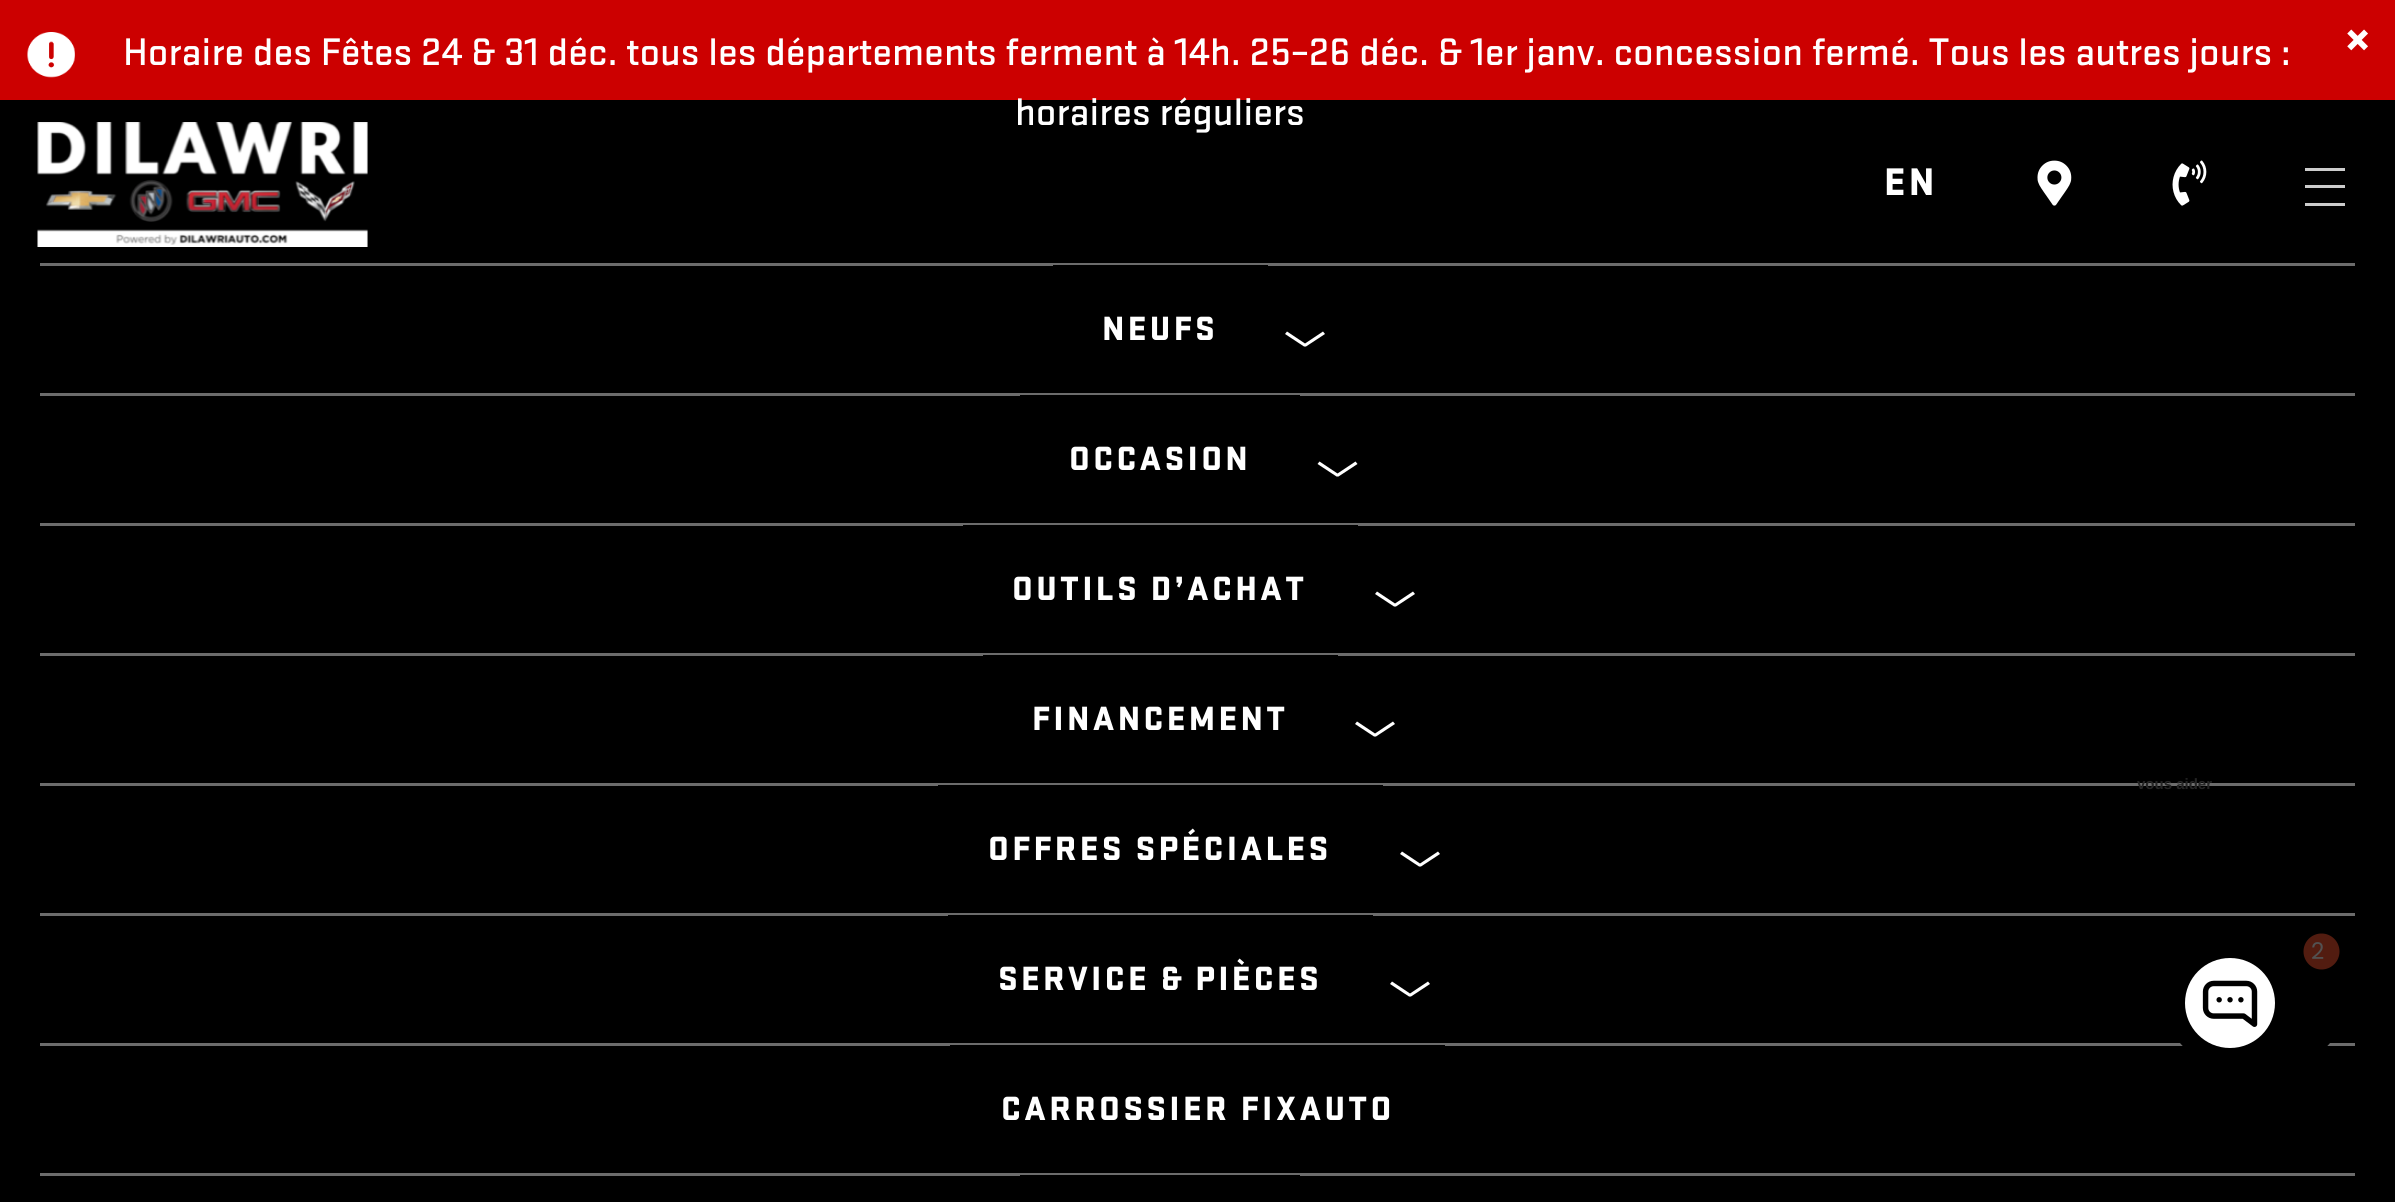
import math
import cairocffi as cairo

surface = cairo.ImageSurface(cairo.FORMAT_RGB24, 2395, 1202)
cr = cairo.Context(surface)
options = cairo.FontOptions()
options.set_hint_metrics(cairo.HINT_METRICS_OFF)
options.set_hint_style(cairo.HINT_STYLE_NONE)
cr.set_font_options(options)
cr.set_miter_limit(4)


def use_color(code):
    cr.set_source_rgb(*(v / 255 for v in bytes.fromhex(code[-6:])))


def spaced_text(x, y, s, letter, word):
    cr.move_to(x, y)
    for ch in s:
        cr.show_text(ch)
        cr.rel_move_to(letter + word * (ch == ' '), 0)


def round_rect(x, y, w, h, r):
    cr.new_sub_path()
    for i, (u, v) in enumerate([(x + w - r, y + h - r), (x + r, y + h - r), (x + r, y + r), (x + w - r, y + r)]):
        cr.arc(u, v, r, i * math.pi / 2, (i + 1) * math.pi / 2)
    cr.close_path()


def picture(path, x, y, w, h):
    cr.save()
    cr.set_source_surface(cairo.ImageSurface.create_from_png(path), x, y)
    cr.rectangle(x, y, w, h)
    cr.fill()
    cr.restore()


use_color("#000000")
cr.paint()
use_color("#cc0000")
cr.rectangle(0, 0, 2395, 100)
cr.fill()
picture("img1.png", 27, 32, 48, 46)
cr.select_font_face("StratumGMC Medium")
cr.set_font_size(40)
use_color("#ffffff")
cr.move_to(123, 65)
cr.show_text("Horaire des Fêtes 24 & 31 déc. tous les départements ferment à 14h. 25–26 déc. & 1er janv. concession fermé. Tous les autres jours :")
cr.move_to(1015, 125)
cr.show_text("horaires réguliers")
cr.select_font_face("StratumGMC", cairo.FONT_SLANT_NORMAL, cairo.FONT_WEIGHT_BOLD)
cr.set_font_size(56)
cr.move_to(2345, 58)
cr.show_text("×")
picture("img2.png", 37, 122, 331, 125)
cr.select_font_face("StratumGMC Black")
cr.set_font_size(40)
spaced_text(1884, 195, "EN", 3.3, 0)
picture("img3.png", 2037, 160, 35, 46)
picture("img4.png", 2172, 160, 35, 46)
use_color("#cccccc")
cr.rectangle(2305, 168, 40, 3)
cr.fill()
cr.rectangle(2305, 185, 40, 3)
cr.fill()
cr.rectangle(2305, 203, 40, 3)
cr.fill()
use_color("#6c6c6c")
cr.rectangle(40, 263, 2315, 3)
cr.fill()
use_color("#000000")
cr.rectangle(1053, 265, 215, 1)
cr.fill()
cr.set_font_size(35)
use_color("#ffffff")
spaced_text(1102, 340, "NEUFS", 3.3, 0)
cr.new_path()
cr.move_to(1323, 331.5)
cr.line_to(1305, 343.5)
cr.line_to(1287, 331.5)
cr.line_to(1285, 334)
cr.line_to(1304, 346.5)
cr.line_to(1306, 346.5)
cr.line_to(1325, 334)
cr.close_path()
cr.fill()
use_color("#6c6c6c")
cr.rectangle(40, 393, 2315, 3)
cr.fill()
use_color("#000000")
cr.rectangle(1020, 395, 280, 1)
cr.fill()
use_color("#ffffff")
spaced_text(1069, 470, "OCCASION", 3.3, 0)
cr.new_path()
cr.move_to(1355.5, 461.5)
cr.line_to(1337.5, 473.5)
cr.line_to(1319.5, 461.5)
cr.line_to(1317.5, 464)
cr.line_to(1336.5, 476.5)
cr.line_to(1338.5, 476.5)
cr.line_to(1357.5, 464)
cr.close_path()
cr.fill()
use_color("#6c6c6c")
cr.rectangle(40, 523, 2315, 3)
cr.fill()
use_color("#000000")
cr.rectangle(963, 525, 395, 1)
cr.fill()
use_color("#ffffff")
spaced_text(1012, 600, "OUTILS D’ACHAT", 3.3, 0)
cr.new_path()
cr.move_to(1413, 591.5)
cr.line_to(1395, 603.5)
cr.line_to(1377, 591.5)
cr.line_to(1375, 594)
cr.line_to(1394, 606.5)
cr.line_to(1396, 606.5)
cr.line_to(1415, 594)
cr.close_path()
cr.fill()
use_color("#6c6c6c")
cr.rectangle(40, 653, 2315, 3)
cr.fill()
use_color("#000000")
cr.rectangle(983, 655, 355, 1)
cr.fill()
use_color("#ffffff")
spaced_text(1032, 730, "FINANCEMENT", 3.3, 0)
cr.new_path()
cr.move_to(1393, 721.5)
cr.line_to(1375, 733.5)
cr.line_to(1357, 721.5)
cr.line_to(1355, 724)
cr.line_to(1374, 736.5)
cr.line_to(1376, 736.5)
cr.line_to(1395, 724)
cr.close_path()
cr.fill()
use_color("#6c6c6c")
cr.rectangle(40, 783, 2315, 3)
cr.fill()
use_color("#000000")
cr.rectangle(938, 785, 445, 1)
cr.fill()
use_color("#ffffff")
spaced_text(988, 860, "OFFRES SPÉCIALES", 3.3, 0)
cr.new_path()
cr.move_to(1438, 851.5)
cr.line_to(1420, 863.5)
cr.line_to(1402, 851.5)
cr.line_to(1400, 854)
cr.line_to(1419, 866.5)
cr.line_to(1421, 866.5)
cr.line_to(1440, 854)
cr.close_path()
cr.fill()
use_color("#6c6c6c")
cr.rectangle(40, 913, 2315, 3)
cr.fill()
use_color("#000000")
cr.rectangle(948, 915, 425, 1)
cr.fill()
use_color("#ffffff")
spaced_text(998, 990, "SERVICE & PIÈCES", 3.3, 0)
cr.new_path()
cr.move_to(1428, 981.5)
cr.line_to(1410, 993.5)
cr.line_to(1392, 981.5)
cr.line_to(1390, 984)
cr.line_to(1409, 996.5)
cr.line_to(1411, 996.5)
cr.line_to(1430, 984)
cr.close_path()
cr.fill()
use_color("#6c6c6c")
cr.rectangle(40, 1043, 2315, 3)
cr.fill()
use_color("#000000")
cr.rectangle(950, 1045, 495, 1)
cr.fill()
use_color("#ffffff")
spaced_text(1001, 1120, "CARROSSIER FIXAUTO", 3.3, 0)
use_color("#6c6c6c")
cr.rectangle(40, 1173, 2315, 3)
cr.fill()
use_color("#000000")
cr.rectangle(1020, 1175, 280, 1)
cr.fill()
cr.select_font_face("Liberation Sans", cairo.FONT_SLANT_NORMAL, cairo.FONT_WEIGHT_BOLD)
cr.set_font_size(15)
use_color("#242424")
cr.move_to(2137, 789)
cr.show_text("vous aider")
use_color("#000000")
round_rect(2165, 940, 180, 125, 62.5)
cr.fill()
use_color("#ffffff")
cr.arc(2230, 1003, 45, 0, 2 * math.pi)
cr.fill()
picture("img5.png", 2202, 980, 56, 47)
use_color("#521c10")
cr.arc(2321.5, 951.5, 18, 0, 2 * math.pi)
cr.fill()
cr.select_font_face("Poppins")
cr.set_font_size(23)
use_color("#525252")
cr.move_to(2311, 959)
cr.show_text("2")
surface.write_to_png("result.png")
